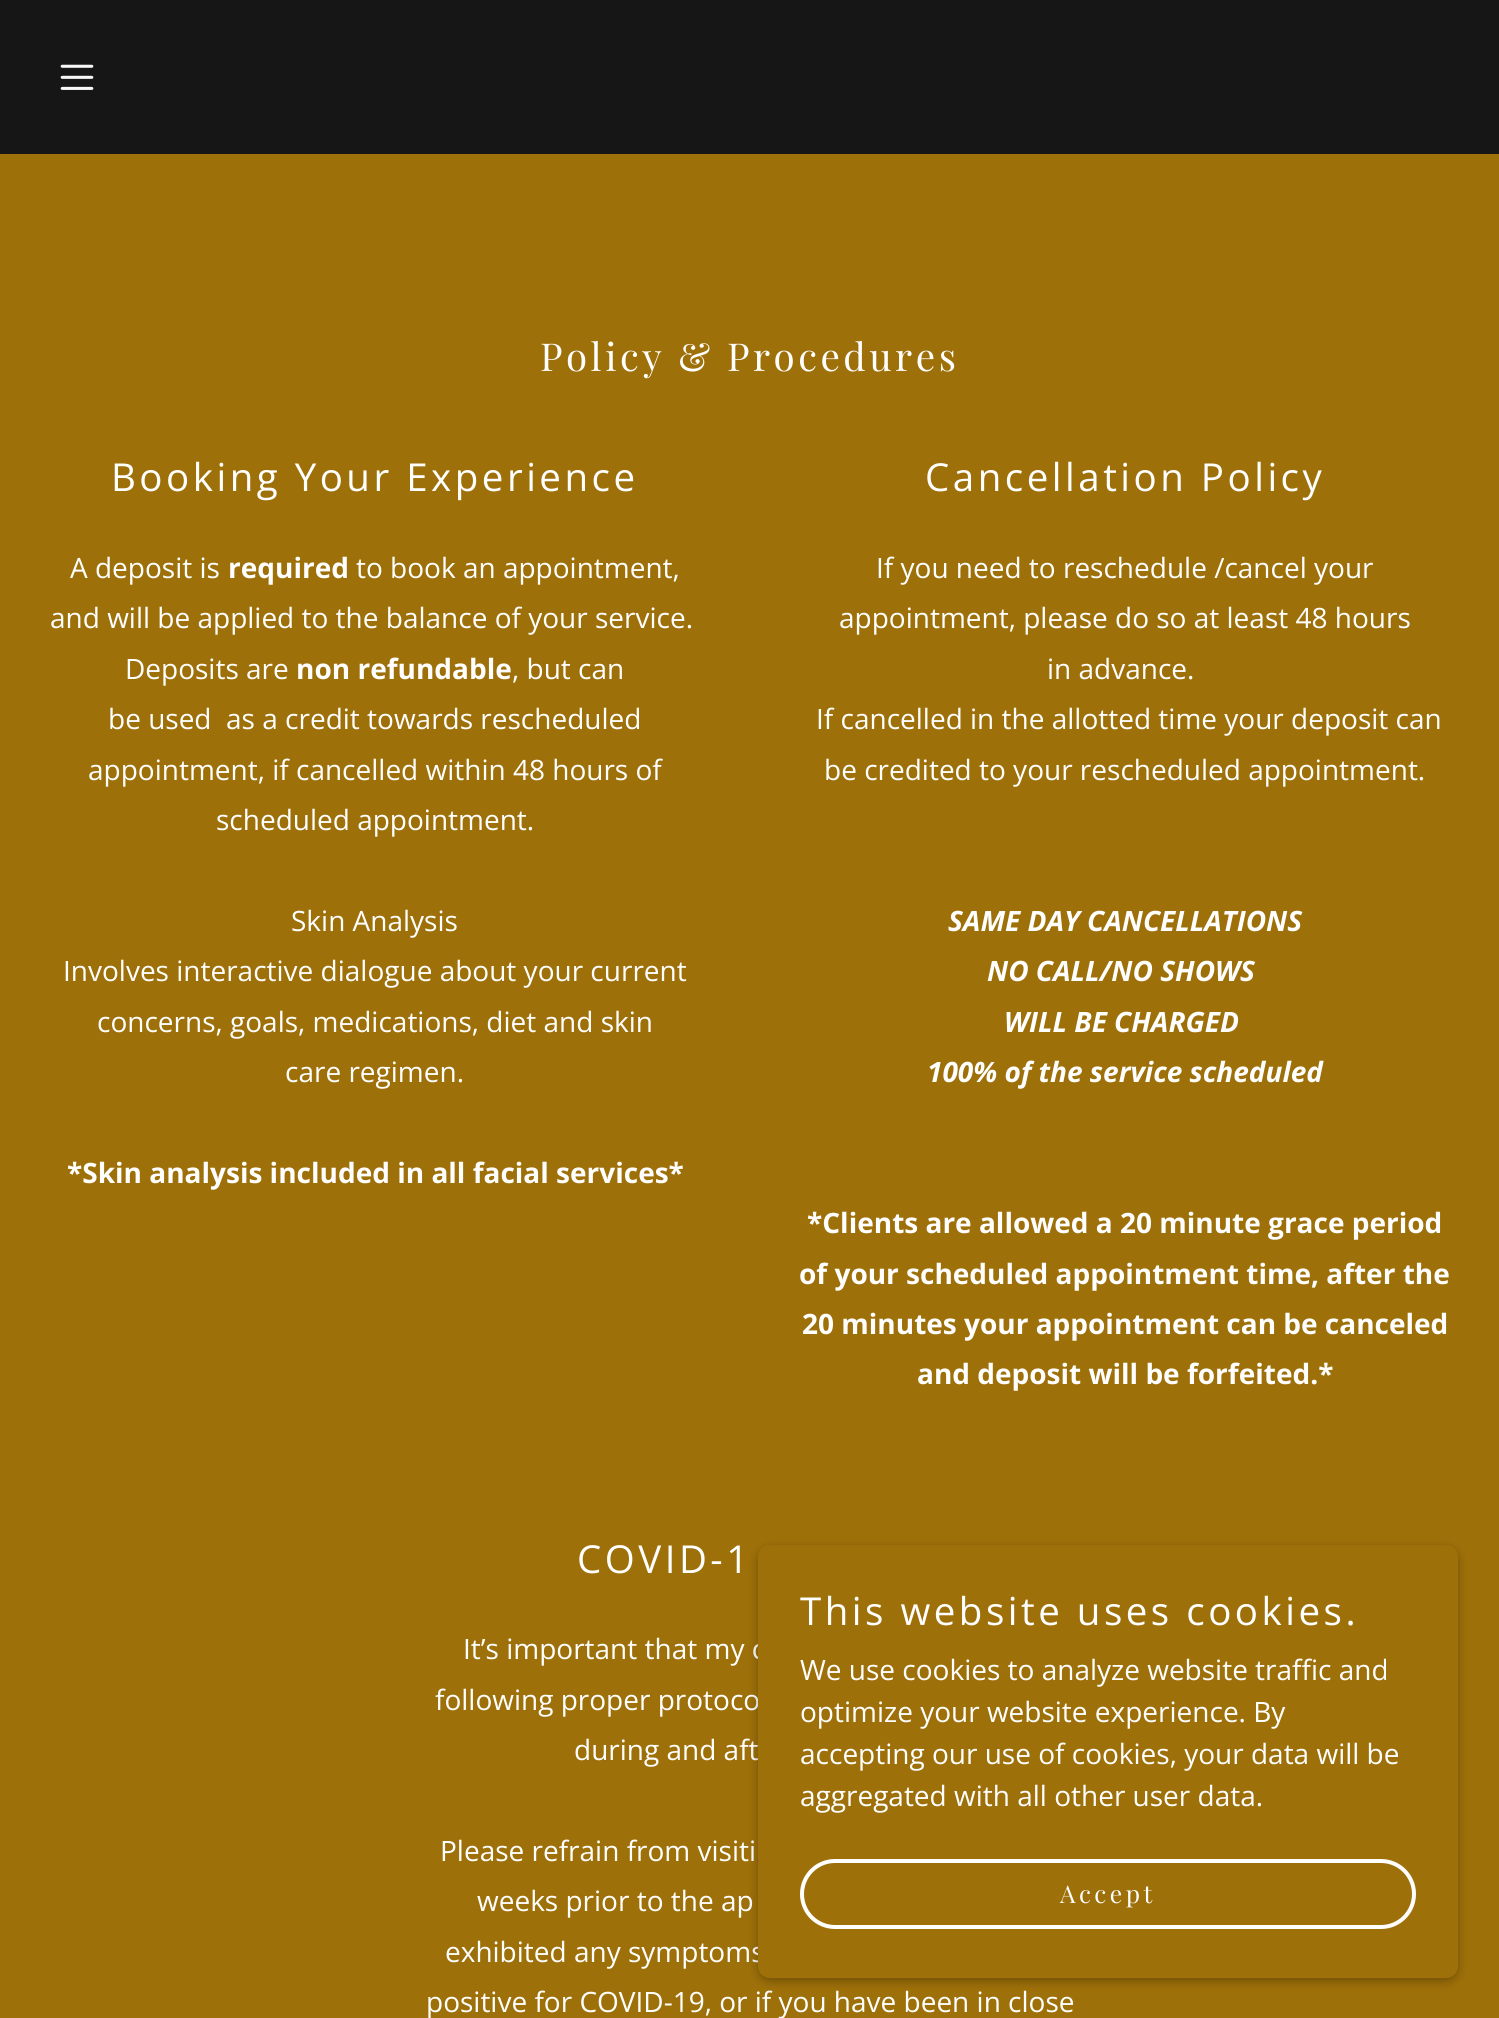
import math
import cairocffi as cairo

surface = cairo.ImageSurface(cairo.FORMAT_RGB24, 1499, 2018)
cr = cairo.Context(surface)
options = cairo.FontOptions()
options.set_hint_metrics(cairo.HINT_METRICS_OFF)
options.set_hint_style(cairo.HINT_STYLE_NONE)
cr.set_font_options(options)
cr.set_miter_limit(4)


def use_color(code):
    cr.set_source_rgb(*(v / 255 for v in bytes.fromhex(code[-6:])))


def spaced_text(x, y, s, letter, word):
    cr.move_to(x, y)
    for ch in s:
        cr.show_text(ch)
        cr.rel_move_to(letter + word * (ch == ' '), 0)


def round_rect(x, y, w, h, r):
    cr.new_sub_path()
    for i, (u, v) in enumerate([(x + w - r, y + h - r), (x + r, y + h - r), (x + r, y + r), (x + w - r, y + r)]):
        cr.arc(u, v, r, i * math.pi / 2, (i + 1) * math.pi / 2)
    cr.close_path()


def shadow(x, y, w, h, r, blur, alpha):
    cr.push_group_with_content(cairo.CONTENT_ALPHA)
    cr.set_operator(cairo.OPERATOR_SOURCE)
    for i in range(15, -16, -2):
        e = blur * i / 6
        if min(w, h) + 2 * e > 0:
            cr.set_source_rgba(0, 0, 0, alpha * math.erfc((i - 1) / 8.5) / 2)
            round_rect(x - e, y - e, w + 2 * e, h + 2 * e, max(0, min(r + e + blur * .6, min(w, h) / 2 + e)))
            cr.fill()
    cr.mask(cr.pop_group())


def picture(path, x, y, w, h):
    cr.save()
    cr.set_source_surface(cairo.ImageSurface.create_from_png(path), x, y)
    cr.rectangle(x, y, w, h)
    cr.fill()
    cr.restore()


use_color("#161616")
cr.paint()
picture("img1.png", 60, 64, 34, 26)
use_color("#9e7009")
cr.rectangle(0, 154, 1499, 1864)
cr.fill()
cr.select_font_face("Playfair Display")
cr.set_font_size(38.5)
use_color("#ffffff")
spaced_text(540, 371, "Policy & Procedures", 3.5, 0)
cr.select_font_face("Open Sans")
spaced_text(111, 491, "Booking Your Experience", 3.5, 0)
cr.set_font_size(28)
cr.move_to(70, 578)
cr.show_text("A deposit is")
cr.select_font_face("Open Sans", cairo.FONT_SLANT_NORMAL, cairo.FONT_WEIGHT_BOLD)
cr.move_to(228, 578)
cr.show_text("required")
cr.select_font_face("Open Sans")
cr.move_to(356, 578)
cr.show_text("to book an appointment,")
cr.move_to(50, 628)
cr.show_text("and will be applied to the balance of your service.")
cr.move_to(125, 679)
cr.show_text("Deposits are")
cr.select_font_face("Open Sans", cairo.FONT_SLANT_NORMAL, cairo.FONT_WEIGHT_BOLD)
cr.move_to(296, 679)
cr.show_text("non refundable")
cr.select_font_face("Open Sans")
cr.move_to(512, 679)
cr.show_text(", but can")
cr.move_to(108, 729)
cr.show_text("be used  as a credit towards rescheduled")
cr.move_to(88, 780)
cr.show_text("appointment, if cancelled within 48 hours of")
cr.move_to(216, 830)
cr.show_text("scheduled appointment.")
cr.move_to(291, 931)
cr.show_text("Skin Analysis")
cr.move_to(63, 981)
cr.show_text("Involves interactive dialogue about your current")
cr.move_to(97, 1032)
cr.show_text("concerns, goals, medications, diet and skin")
cr.move_to(285, 1082)
cr.show_text("care regimen.")
cr.select_font_face("Open Sans", cairo.FONT_SLANT_NORMAL, cairo.FONT_WEIGHT_BOLD)
cr.move_to(67, 1183)
cr.show_text("*Skin analysis included in all facial services*")
cr.select_font_face("Open Sans")
cr.set_font_size(38.5)
spaced_text(925, 491, "Cancellation Policy", 3.5, 0)
cr.set_font_size(28)
cr.move_to(876, 578)
cr.show_text("If you need to reschedule /cancel your")
cr.move_to(839, 628)
cr.show_text("appointment, please do so at least 48 hours")
cr.move_to(1047, 679)
cr.show_text("in advance.")
cr.move_to(816, 729)
cr.show_text("If cancelled in the allotted time your deposit can")
cr.move_to(824, 780)
cr.show_text("be credited to your rescheduled appointment.")
cr.select_font_face("Open Sans", cairo.FONT_SLANT_ITALIC, cairo.FONT_WEIGHT_BOLD)
cr.move_to(948, 931)
cr.show_text("SAME DAY CANCELLATIONS")
cr.move_to(987, 981)
cr.show_text("NO CALL/NO SHOWS")
cr.move_to(1004, 1032)
cr.show_text("WILL BE CHARGED")
cr.move_to(927, 1082)
cr.show_text("100% of the service scheduled")
cr.select_font_face("Open Sans", cairo.FONT_SLANT_NORMAL, cairo.FONT_WEIGHT_BOLD)
cr.move_to(807, 1233)
cr.show_text("*Clients are allowed a 20 minute grace period")
cr.move_to(799, 1284)
cr.show_text("of your scheduled appointment time, after the")
cr.move_to(802, 1334)
cr.show_text("20 minutes your appointment can be canceled")
cr.move_to(917, 1384)
cr.show_text("and deposit will be forfeited.*")
cr.select_font_face("Open Sans")
cr.set_font_size(38.5)
spaced_text(577, 1573, "COVID-1", 3.5, 0)
cr.set_font_size(28)
cr.move_to(463, 1659)
cr.show_text("It’s important that my c")
cr.move_to(435, 1710)
cr.show_text("following proper protoco")
cr.move_to(574, 1760)
cr.show_text("during and aft")
cr.move_to(440, 1861)
cr.show_text("Please refrain from visiti")
cr.move_to(477, 1911)
cr.show_text("weeks prior to the ap")
cr.move_to(445, 1962)
cr.show_text("exhibited any symptoms")
cr.move_to(426, 2012)
cr.show_text("positive for COVID-19, or if you have been in close")
use_color("#000000")
shadow(758, 1549, 700, 432, 12, 5, 0.3)
use_color("#9e7009")
round_rect(758, 1545, 700, 433, 12)
cr.fill()
cr.set_font_size(38.5)
use_color("#ffffff")
spaced_text(800, 1625, "This website uses cookies.", 3.5, 0)
cr.set_font_size(28)
cr.move_to(800, 1680)
cr.show_text("We use cookies to analyze website traffic and")
cr.move_to(800, 1722)
cr.show_text("optimize your website experience. By")
cr.move_to(800, 1764)
cr.show_text("accepting our use of cookies, your data will be")
cr.move_to(800, 1806)
cr.show_text("aggregated with all other user data.")
round_rect(802, 1861, 612, 66, 33)
cr.set_line_width(4)
cr.stroke()
cr.select_font_face("Playfair Display")
cr.set_font_size(24.5)
spaced_text(1060, 1903, "Accept", 3.5, 0)
surface.write_to_png("result.png")
